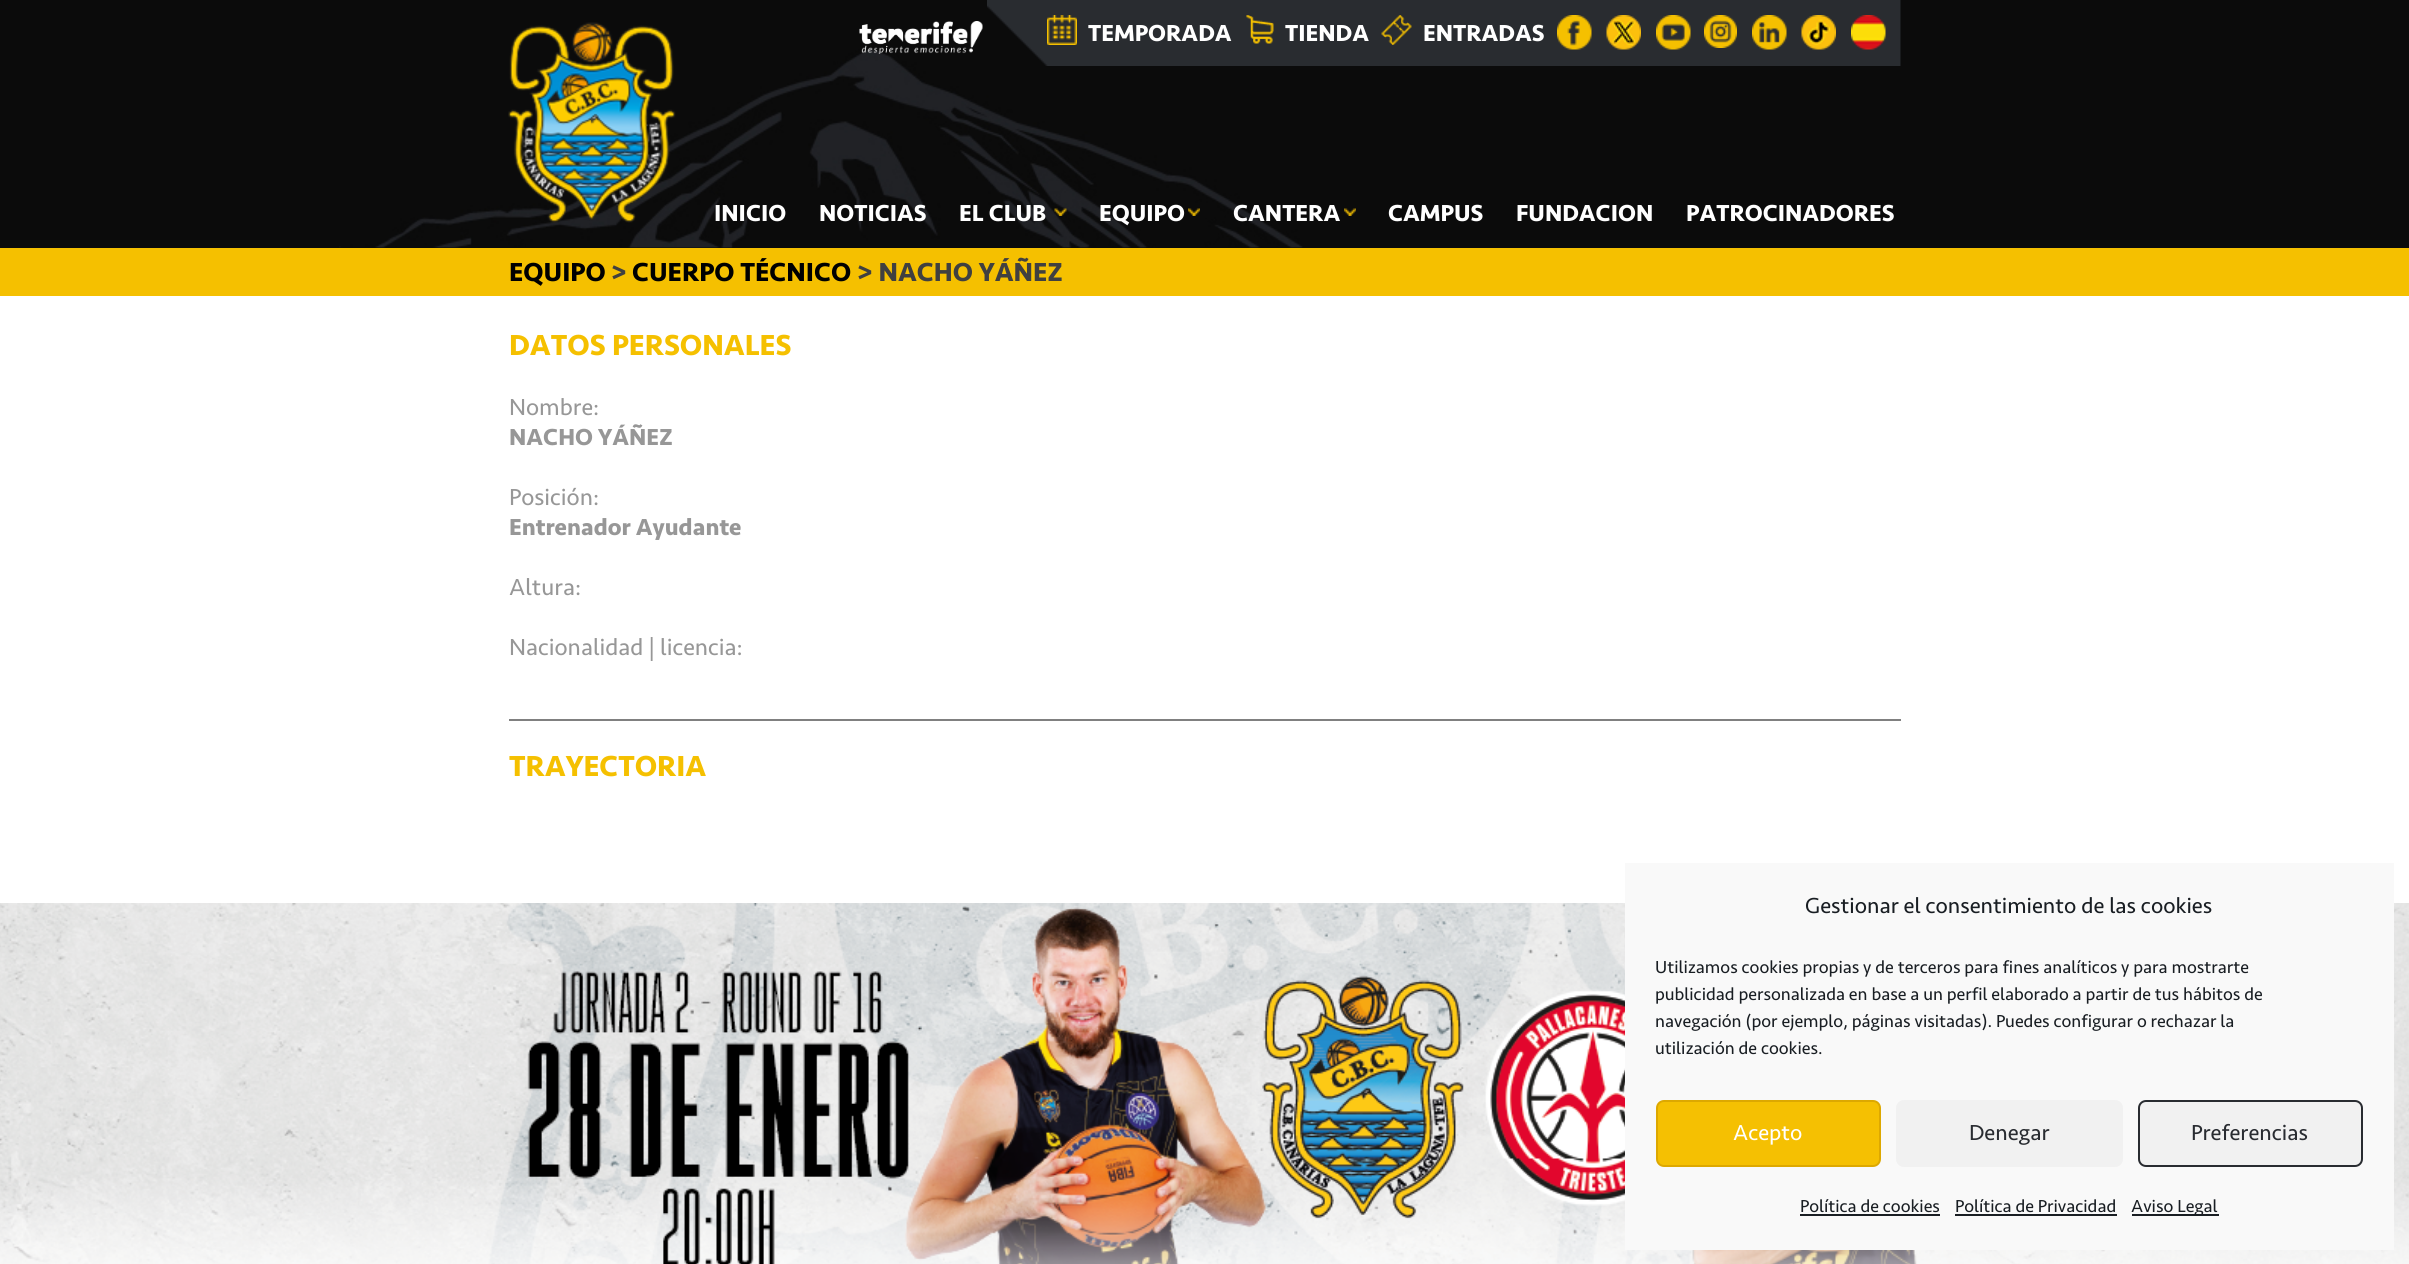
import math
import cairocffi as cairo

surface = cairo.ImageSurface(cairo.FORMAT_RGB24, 2409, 1264)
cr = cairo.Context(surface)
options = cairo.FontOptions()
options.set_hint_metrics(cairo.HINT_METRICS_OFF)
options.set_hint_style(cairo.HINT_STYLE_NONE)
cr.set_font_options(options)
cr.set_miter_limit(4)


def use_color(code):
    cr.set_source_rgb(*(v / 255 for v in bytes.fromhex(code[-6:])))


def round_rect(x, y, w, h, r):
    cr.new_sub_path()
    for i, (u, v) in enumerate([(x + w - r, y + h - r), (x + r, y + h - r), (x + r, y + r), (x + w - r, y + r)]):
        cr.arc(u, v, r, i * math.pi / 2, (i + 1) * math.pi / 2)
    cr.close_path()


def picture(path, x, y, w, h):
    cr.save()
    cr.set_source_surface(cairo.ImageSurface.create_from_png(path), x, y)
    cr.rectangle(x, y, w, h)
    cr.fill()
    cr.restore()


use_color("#ffffff")
cr.paint()
use_color("#0b0b0b")
cr.rectangle(0, 0, 2409, 248)
cr.fill()
picture("img1.png", 339, 48, 964, 200)
picture("img2.png", 508, 22, 168, 201)
picture("img3.png", 859, 21, 124, 33)
picture("img4.png", 987, 0, 914, 66)
picture("img5.png", 1047, 15, 30, 30)
cr.select_font_face("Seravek", cairo.FONT_SLANT_NORMAL, cairo.FONT_WEIGHT_BOLD)
cr.set_font_size(24)
use_color("#ffffff")
cr.move_to(1088, 41)
cr.show_text("TEMPORADA")
picture("img6.png", 1246, 15, 28, 29)
cr.move_to(1285, 41)
cr.show_text("TIENDA")
picture("img7.png", 1381, 15, 31, 30)
cr.move_to(1423, 41)
cr.show_text("ENTRADAS")
picture("img8.png", 1557, 15, 35, 35)
picture("img9.png", 1606, 15, 35, 35)
picture("img10.png", 1656, 15, 35, 35)
picture("img11.png", 1704, 15, 33, 33)
picture("img12.png", 1752, 15, 35, 35)
picture("img13.png", 1801, 15, 35, 35)
picture("img14.png", 1851, 15, 35, 35)
cr.move_to(714, 221)
cr.show_text("INICIO")
cr.move_to(819, 221)
cr.show_text("NOTICIAS")
cr.move_to(959, 221)
cr.show_text("EL CLUB")
picture("img15.png", 1054, 208, 13, 8)
cr.move_to(1099, 221)
cr.show_text("EQUIPO")
picture("img16.png", 1188, 208, 12, 8)
cr.move_to(1233, 221)
cr.show_text("CANTERA")
picture("img16.png", 1344, 208, 12, 8)
cr.move_to(1388, 221)
cr.show_text("CAMPUS")
cr.move_to(1516, 221)
cr.show_text("FUNDACION")
cr.move_to(1686, 221)
cr.show_text("PATROCINADORES")
use_color("#f5c000")
cr.rectangle(0, 248, 2409, 48)
cr.fill()
cr.set_font_size(27)
use_color("#000000")
cr.move_to(509, 281)
cr.show_text("EQUIPO")
use_color("#404040")
cr.move_to(611, 281)
cr.show_text(">")
use_color("#000000")
cr.move_to(632, 281)
cr.show_text("CUERPO TÉCNICO")
use_color("#404040")
cr.move_to(857, 281)
cr.show_text("> NACHO YÁÑEZ")
use_color("#808080")
cr.rectangle(509, 719, 1392, 2)
cr.fill()
cr.set_font_size(30)
use_color("#f5c000")
cr.move_to(509, 355)
cr.show_text("DATOS PERSONALES")
cr.select_font_face("Seravek")
cr.set_font_size(24)
use_color("#979797")
cr.move_to(509, 415)
cr.show_text("Nombre:")
cr.select_font_face("Seravek", cairo.FONT_SLANT_NORMAL, cairo.FONT_WEIGHT_BOLD)
cr.move_to(509, 445)
cr.show_text("NACHO YÁÑEZ")
cr.select_font_face("Seravek")
cr.move_to(509, 505)
cr.show_text("Posición:")
cr.select_font_face("Seravek", cairo.FONT_SLANT_NORMAL, cairo.FONT_WEIGHT_BOLD)
cr.move_to(509, 535)
cr.show_text("Entrenador Ayudante")
cr.select_font_face("Seravek")
cr.move_to(509, 595)
cr.show_text("Altura:")
cr.move_to(509, 655)
cr.show_text("Nacionalidad | licencia:")
cr.select_font_face("Seravek", cairo.FONT_SLANT_NORMAL, cairo.FONT_WEIGHT_BOLD)
cr.set_font_size(30)
use_color("#f5c000")
cr.move_to(509, 776)
cr.show_text("TRAYECTORIA")
picture("img17.png", 0, 903, 2409, 361)
use_color("#f9f9f9")
cr.rectangle(1625, 863, 769, 387)
cr.fill()
cr.select_font_face("Seravek")
cr.set_font_size(22.5)
use_color("#191e23")
cr.move_to(1805, 913)
cr.show_text("Gestionar el consentimiento de las cookies")
cr.set_font_size(18)
cr.move_to(1655, 973)
cr.show_text("Utilizamos cookies propias y de terceros para fines analíticos y para mostrarte")
cr.move_to(1655, 1000)
cr.show_text("publicidad personalizada en base a un perfil elaborado a partir de tus hábitos de")
cr.move_to(1655, 1027)
cr.show_text("navegación (por ejemplo, páginas visitadas). Puedes configurar o rechazar la")
cr.move_to(1655, 1054)
cr.show_text("utilización de cookies.")
use_color("#f5c002")
round_rect(1657, 1101, 223, 65, 7)
cr.fill_preserve()
use_color("#dda800")
cr.stroke()
cr.set_font_size(22.5)
use_color("#ffffff")
cr.move_to(1733, 1140)
cr.show_text("Acepto")
use_color("#f1f1f1")
round_rect(1896, 1100, 227, 67, 8)
cr.fill()
use_color("#292c31")
cr.move_to(1969, 1140)
cr.show_text("Denegar")
use_color("#f1f1f1")
round_rect(2139, 1101, 223, 65, 7)
cr.fill_preserve()
use_color("#292c31")
cr.stroke()
cr.move_to(2191, 1140)
cr.show_text("Preferencias")
cr.set_font_size(18)
use_color("#191e23")
cr.move_to(1800, 1212)
cr.show_text("Política de cookies")
cr.rectangle(1800, 1214, 140, 2)
cr.fill()
cr.move_to(1955, 1212)
cr.show_text("Política de Privacidad")
cr.rectangle(1955, 1214, 162, 2)
cr.fill()
cr.rectangle(2132, 1214, 87, 2)
cr.fill()
cr.move_to(2131, 1212)
cr.show_text("Aviso Legal")
surface.write_to_png("result.png")
